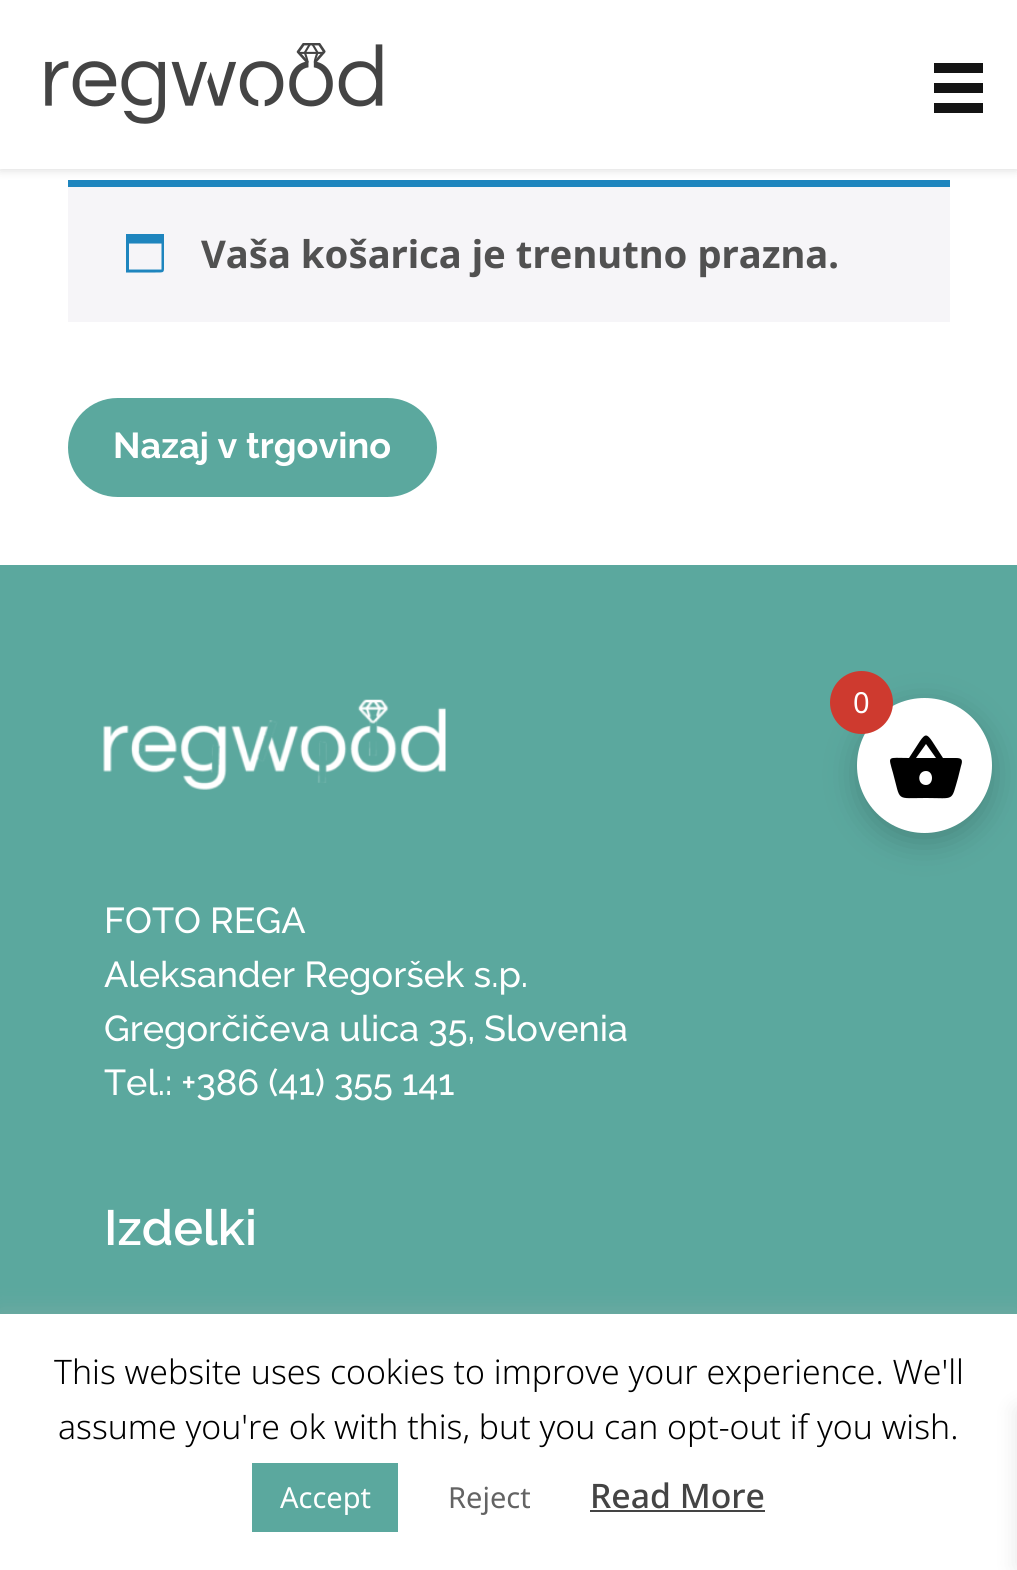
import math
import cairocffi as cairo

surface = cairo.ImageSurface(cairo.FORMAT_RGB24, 1017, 1570)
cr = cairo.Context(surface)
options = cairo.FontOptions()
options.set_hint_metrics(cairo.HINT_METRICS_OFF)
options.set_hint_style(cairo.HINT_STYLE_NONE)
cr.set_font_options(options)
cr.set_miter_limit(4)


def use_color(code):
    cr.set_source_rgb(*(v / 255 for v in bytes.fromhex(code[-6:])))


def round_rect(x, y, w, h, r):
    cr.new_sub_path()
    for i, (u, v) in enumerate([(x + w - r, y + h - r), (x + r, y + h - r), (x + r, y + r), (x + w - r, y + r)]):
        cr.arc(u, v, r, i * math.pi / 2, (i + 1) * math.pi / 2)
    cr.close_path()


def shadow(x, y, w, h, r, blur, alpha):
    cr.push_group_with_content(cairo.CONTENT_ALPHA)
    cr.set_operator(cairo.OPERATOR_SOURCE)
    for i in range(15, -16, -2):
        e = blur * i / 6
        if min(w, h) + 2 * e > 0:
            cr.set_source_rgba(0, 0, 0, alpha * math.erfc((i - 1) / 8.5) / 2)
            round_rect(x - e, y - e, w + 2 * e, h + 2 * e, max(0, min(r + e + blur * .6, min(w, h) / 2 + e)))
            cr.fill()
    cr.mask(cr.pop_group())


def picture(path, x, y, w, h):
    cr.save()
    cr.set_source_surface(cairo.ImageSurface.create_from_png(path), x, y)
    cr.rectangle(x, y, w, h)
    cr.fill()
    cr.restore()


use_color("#ffffff")
cr.paint()
use_color("#1e85be")
cr.rectangle(68, 180, 882, 7)
cr.fill()
use_color("#020000")
shadow(0, 0, 1017, 169, 0, 5.5, 0.16)
use_color("#ffffff")
cr.rectangle(0, 0, 1017, 169)
cr.fill()
picture("img1.png", 45, 43, 338, 81)
use_color("#141414")
cr.rectangle(934, 63, 49, 10)
cr.fill()
cr.rectangle(934, 83, 49, 10)
cr.fill()
cr.rectangle(934, 103, 49, 10)
cr.fill()
use_color("#f6f5f8")
cr.rectangle(68, 187, 882, 135)
cr.fill()
use_color("#1e85be")
cr.new_path()
cr.move_to(161.5, 243.5)
cr.line_to(129, 243.5)
cr.line_to(129, 269.5)
cr.line_to(161.5, 269.5)
cr.close_path()
cr.move_to(164, 234)
cr.line_to(164, 263.5)
cr.curve_to(164, 273, 165, 272.5, 155.5, 272.5)
cr.line_to(126, 272.5)
cr.line_to(126, 234)
cr.close_path()
cr.fill()
cr.select_font_face("Noto Sans", cairo.FONT_SLANT_NORMAL, cairo.FONT_WEIGHT_BOLD)
cr.set_font_size(38.25)
use_color("#515151")
cr.move_to(201, 268)
cr.show_text("Vaša košarica je trenutno prazna.")
use_color("#5ba89e")
round_rect(68, 398, 369, 99, 49.5)
cr.fill()
cr.select_font_face("Raleway", cairo.FONT_SLANT_NORMAL, cairo.FONT_WEIGHT_BOLD)
cr.set_font_size(36)
use_color("#ffffff")
cr.move_to(113, 458)
cr.show_text("Nazaj v trgovino")
use_color("#5ba89e")
cr.rectangle(0, 565, 1017, 749)
cr.fill()
use_color("#000000")
shadow(857, 707, 135, 135, 67.5, 16, 0.2)
use_color("#ffffff")
cr.arc(924.5, 765.5, 67.5, 0, 2 * math.pi)
cr.fill()
use_color("#ce3a2f")
cr.arc(861.5, 702.5, 31.5, 0, 2 * math.pi)
cr.fill()
cr.select_font_face("Noto Sans")
cr.set_font_size(29)
use_color("#ffffff")
cr.move_to(853, 713)
cr.show_text("0")
use_color("#000000")
cr.new_path()
cr.move_to(926, 785)
cr.curve_to(934, 785, 934, 771, 926, 771)
cr.curve_to(917, 771, 917, 785, 926, 785)
cr.close_path()
cr.move_to(916, 758)
cr.line_to(936, 758)
cr.line_to(926, 744)
cr.close_path()
cr.move_to(943, 758)
cr.line_to(956, 758)
cr.curve_to(962, 758, 963, 760, 961, 766)
cr.line_to(958, 778)
cr.curve_to(951, 802, 955, 798, 926, 798)
cr.curve_to(895, 798, 901, 802, 893, 773)
cr.curve_to(888, 755, 887, 758, 909, 758)
cr.curve_to(929, 728, 923, 728, 943, 758)
cr.close_path()
cr.fill()
use_color("#acabab")
shadow(0, 1312, 1017, 256, 0, 11, 0.3)
use_color("#ffffff")
cr.rectangle(0, 1314, 1017, 256)
cr.fill()
use_color("#000000")
shadow(1017, 1409, 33, 159, 0, 11, 0.1)
picture("img2.png", 103, 699, 343, 91)
cr.select_font_face("Raleway Medium")
cr.set_font_size(36)
use_color("#ffffff")
cr.move_to(104, 933)
cr.show_text("FOTO REGA")
cr.move_to(104, 987)
cr.show_text("Aleksander Regoršek s.p.")
cr.move_to(104, 1041)
cr.show_text("Gregorčičeva ulica 35, Slovenia")
cr.move_to(104, 1095)
cr.show_text("Tel.: +386 (41) 355 141")
cr.select_font_face("Raleway SemiBold")
cr.set_font_size(49.5)
cr.move_to(104, 1245)
cr.show_text("Izdelki")
cr.select_font_face("Noto Sans Light")
cr.set_font_size(33.75)
use_color("#000000")
cr.move_to(54, 1384)
cr.show_text("This website uses cookies to improve your experience. We'll")
cr.move_to(58, 1439)
cr.show_text("assume you're ok with this, but you can opt-out if you wish.")
use_color("#5ba89e")
cr.rectangle(252, 1463, 146, 69)
cr.fill()
cr.select_font_face("Noto Sans")
cr.set_font_size(29)
use_color("#ffffff")
cr.move_to(280, 1508)
cr.show_text("Accept")
use_color("#636363")
cr.move_to(448, 1508)
cr.show_text("Reject")
cr.select_font_face("Noto Sans Medium")
cr.set_font_size(33.75)
use_color("#444444")
cr.move_to(590, 1508)
cr.show_text("Read More")
cr.rectangle(590, 1510, 175, 2)
cr.fill()
surface.write_to_png("result.png")
